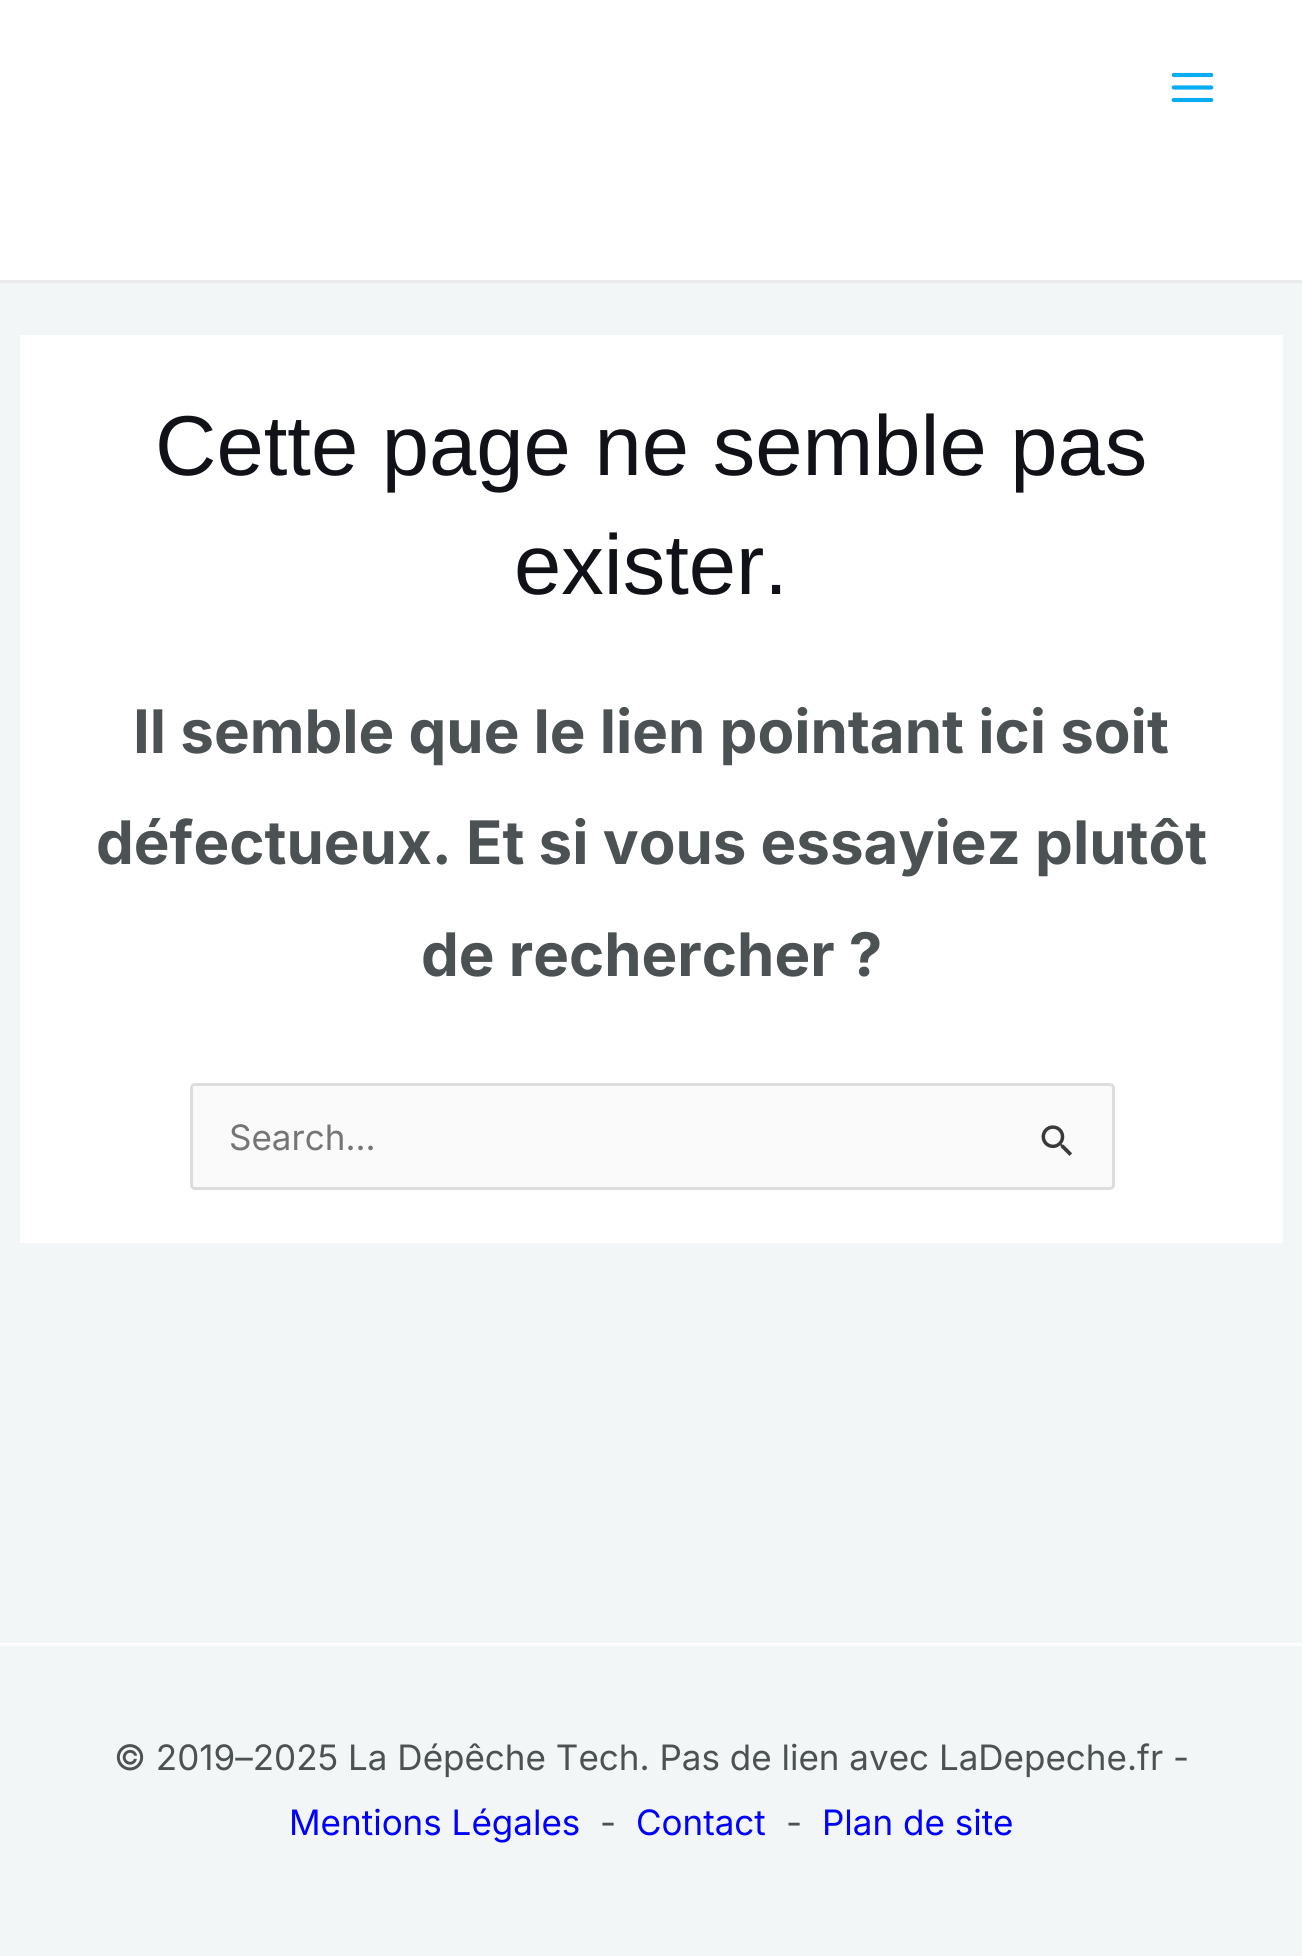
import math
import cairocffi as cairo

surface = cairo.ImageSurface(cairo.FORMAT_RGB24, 1302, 1956)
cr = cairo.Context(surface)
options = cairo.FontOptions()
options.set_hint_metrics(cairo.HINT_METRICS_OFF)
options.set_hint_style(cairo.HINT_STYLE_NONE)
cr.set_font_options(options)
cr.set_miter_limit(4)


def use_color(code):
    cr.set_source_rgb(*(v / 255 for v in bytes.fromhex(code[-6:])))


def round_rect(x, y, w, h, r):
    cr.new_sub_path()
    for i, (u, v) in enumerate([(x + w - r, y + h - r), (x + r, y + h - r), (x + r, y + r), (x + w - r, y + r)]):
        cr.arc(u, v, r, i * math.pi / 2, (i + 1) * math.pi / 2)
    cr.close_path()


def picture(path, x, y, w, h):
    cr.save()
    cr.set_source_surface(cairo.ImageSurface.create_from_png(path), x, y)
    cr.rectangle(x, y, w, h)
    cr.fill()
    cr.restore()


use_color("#f3f6f6")
cr.paint()
use_color("#ffffff")
cr.rectangle(0, 0, 1302, 280)
cr.fill()
use_color("#eaeaea")
cr.rectangle(0, 280, 1302, 3)
cr.fill()
picture("img1.png", 1171, 72, 43, 31)
use_color("#ffffff")
cr.rectangle(20, 335, 1263, 908)
cr.fill()
cr.select_font_face("Liberation Sans")
cr.set_font_size(85)
use_color("#101218")
cr.move_to(155, 475)
cr.show_text("Cette page ne semble pas")
cr.move_to(514, 594)
cr.show_text("exister.")
cr.select_font_face("Inter", cairo.FONT_SLANT_NORMAL, cairo.FONT_WEIGHT_BOLD)
cr.set_font_size(60)
use_color("#4c5253")
cr.move_to(133, 753)
cr.show_text("Il semble que le lien pointant ici soit")
cr.move_to(96, 864)
cr.show_text("défectueux. Et si vous essayiez plutôt")
cr.move_to(421, 976)
cr.show_text("de rechercher ?")
use_color("#fafafa")
round_rect(191.5, 1084.5, 922, 104, 3.5)
cr.fill_preserve()
use_color("#dddddd")
cr.set_line_width(3)
cr.stroke()
cr.select_font_face("Inter")
cr.set_font_size(35)
use_color("#757575")
cr.move_to(229, 1150)
cr.show_text("Search...")
picture("img2.png", 1041, 1125, 31, 31)
use_color("#ffffff")
cr.rectangle(0, 1643, 1302, 3)
cr.fill()
use_color("#4c5253")
cr.move_to(114, 1770)
cr.show_text("© 2019–2025 La Dépêche Tech. Pas de lien avec LaDepeche.fr -")
use_color("#0000ff")
cr.move_to(289, 1835)
cr.show_text("Mentions Légales")
use_color("#4c5253")
cr.move_to(600, 1835)
cr.show_text("-")
use_color("#0000ff")
cr.move_to(636, 1835)
cr.show_text("Contact")
use_color("#4c5253")
cr.move_to(786, 1835)
cr.show_text("-")
use_color("#0000ff")
cr.move_to(822, 1835)
cr.show_text("Plan de site")
surface.write_to_png("result.png")
